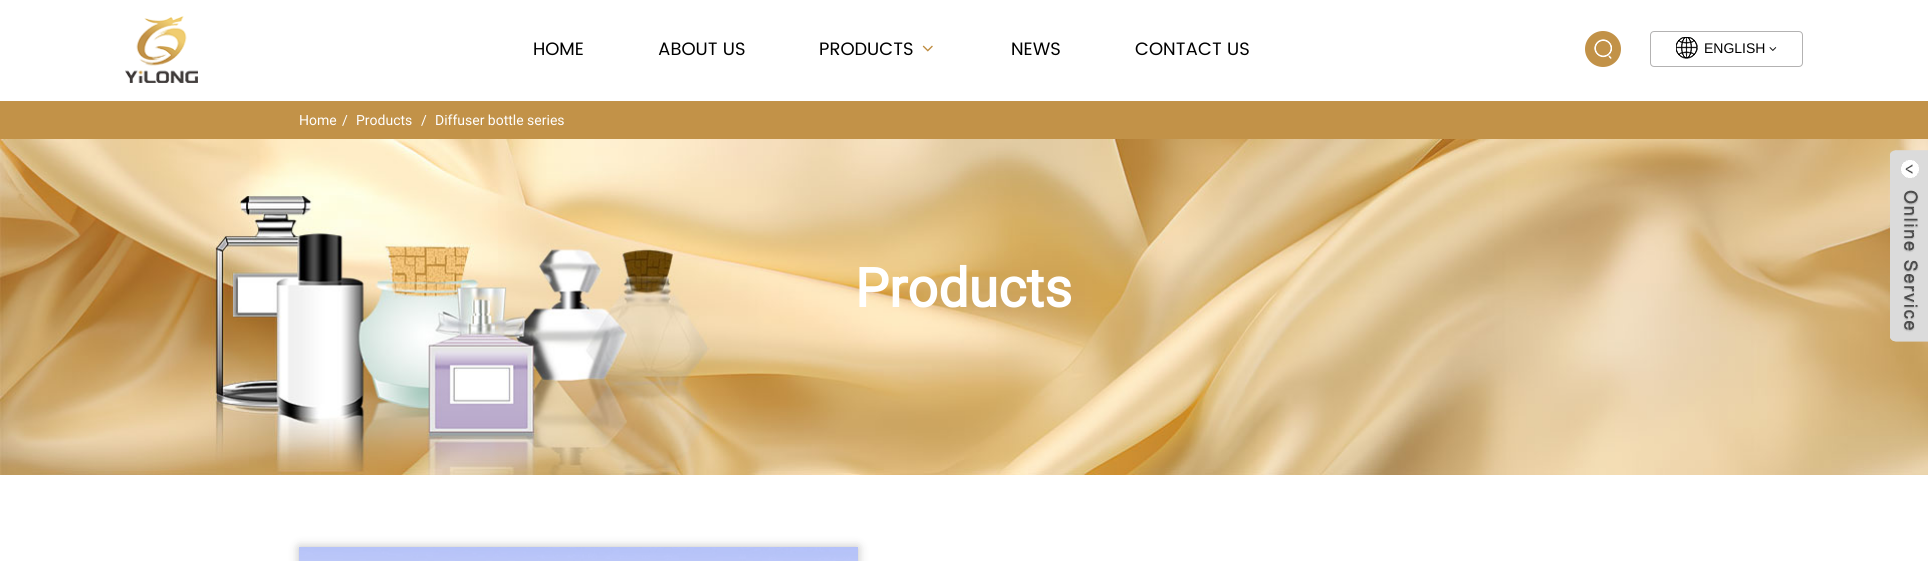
import math
import cairocffi as cairo

surface = cairo.ImageSurface(cairo.FORMAT_RGB24, 1928, 561)
cr = cairo.Context(surface)
options = cairo.FontOptions()
options.set_hint_metrics(cairo.HINT_METRICS_OFF)
options.set_hint_style(cairo.HINT_STYLE_NONE)
cr.set_font_options(options)
cr.set_miter_limit(4)


def use_color(code):
    cr.set_source_rgb(*(v / 255 for v in bytes.fromhex(code[-6:])))


def round_rect(x, y, w, h, r):
    cr.new_sub_path()
    for i, (u, v) in enumerate([(x + w - r, y + h - r), (x + r, y + h - r), (x + r, y + r), (x + w - r, y + r)]):
        cr.arc(u, v, r, i * math.pi / 2, (i + 1) * math.pi / 2)
    cr.close_path()


def shadow(x, y, w, h, r, blur, alpha):
    cr.push_group_with_content(cairo.CONTENT_ALPHA)
    cr.set_operator(cairo.OPERATOR_SOURCE)
    for i in range(15, -16, -2):
        e = blur * i / 6
        if min(w, h) + 2 * e > 0:
            cr.set_source_rgba(0, 0, 0, alpha * math.erfc((i - 1) / 8.5) / 2)
            round_rect(x - e, y - e, w + 2 * e, h + 2 * e, max(0, min(r + e + blur * .6, min(w, h) / 2 + e)))
            cr.fill()
    cr.mask(cr.pop_group())


def picture(path, x, y, w, h):
    cr.save()
    cr.set_source_surface(cairo.ImageSurface.create_from_png(path), x, y)
    cr.rectangle(x, y, w, h)
    cr.fill()
    cr.restore()


use_color("#ffffff")
cr.paint()
picture("img1.png", 125, 16, 73, 67)
cr.select_font_face("Poppins")
cr.set_font_size(18)
use_color("#000000")
cr.move_to(533, 55)
cr.show_text("HOME")
cr.move_to(658, 55)
cr.show_text("ABOUT US")
cr.move_to(819, 55)
cr.show_text("PRODUCTS")
picture("img2.png", 922, 45, 11, 7)
cr.move_to(1011, 55)
cr.show_text("NEWS")
cr.move_to(1135, 55)
cr.show_text("CONTACT US")
use_color("#c29248")
cr.new_path()
cr.arc(1603, 49, 18, 0, 2 * math.pi)
cr.fill()
picture("img3.png", 1594, 39, 18, 20)
round_rect(1650.5, 31.5, 152, 35, 3.5)
use_color("#b3b2b2")
cr.set_line_width(1)
cr.stroke()
picture("img4.png", 1676, 37, 22, 22)
cr.select_font_face("Liberation Sans")
cr.set_font_size(14)
use_color("#000000")
cr.move_to(1704, 53)
cr.show_text("ENGLISH")
picture("img5.png", 1769, 47, 8, 4)
use_color("#c29248")
cr.rectangle(0, 101, 1928, 38)
cr.fill()
cr.select_font_face("Roboto")
use_color("#ffffff")
cr.move_to(299, 125)
cr.show_text("Home")
cr.move_to(342, 125)
cr.show_text("/")
cr.move_to(356, 125)
cr.show_text("Products")
cr.move_to(421, 125)
cr.show_text("/")
cr.move_to(435, 125)
cr.show_text("Diffuser bottle series")
picture("img6.png", 0, 139, 1928, 336)
cr.select_font_face("Roboto", cairo.FONT_SLANT_NORMAL, cairo.FONT_WEIGHT_BOLD)
cr.set_font_size(54)
cr.move_to(855, 307)
cr.show_text("Products")
use_color("#000000")
shadow(299, 547, 559, 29, 0, 5, 0.25)
picture("img7.png", 299, 547, 559, 14)
picture("img8.png", 1890, 150, 38, 192)
surface.write_to_png("result.png")
